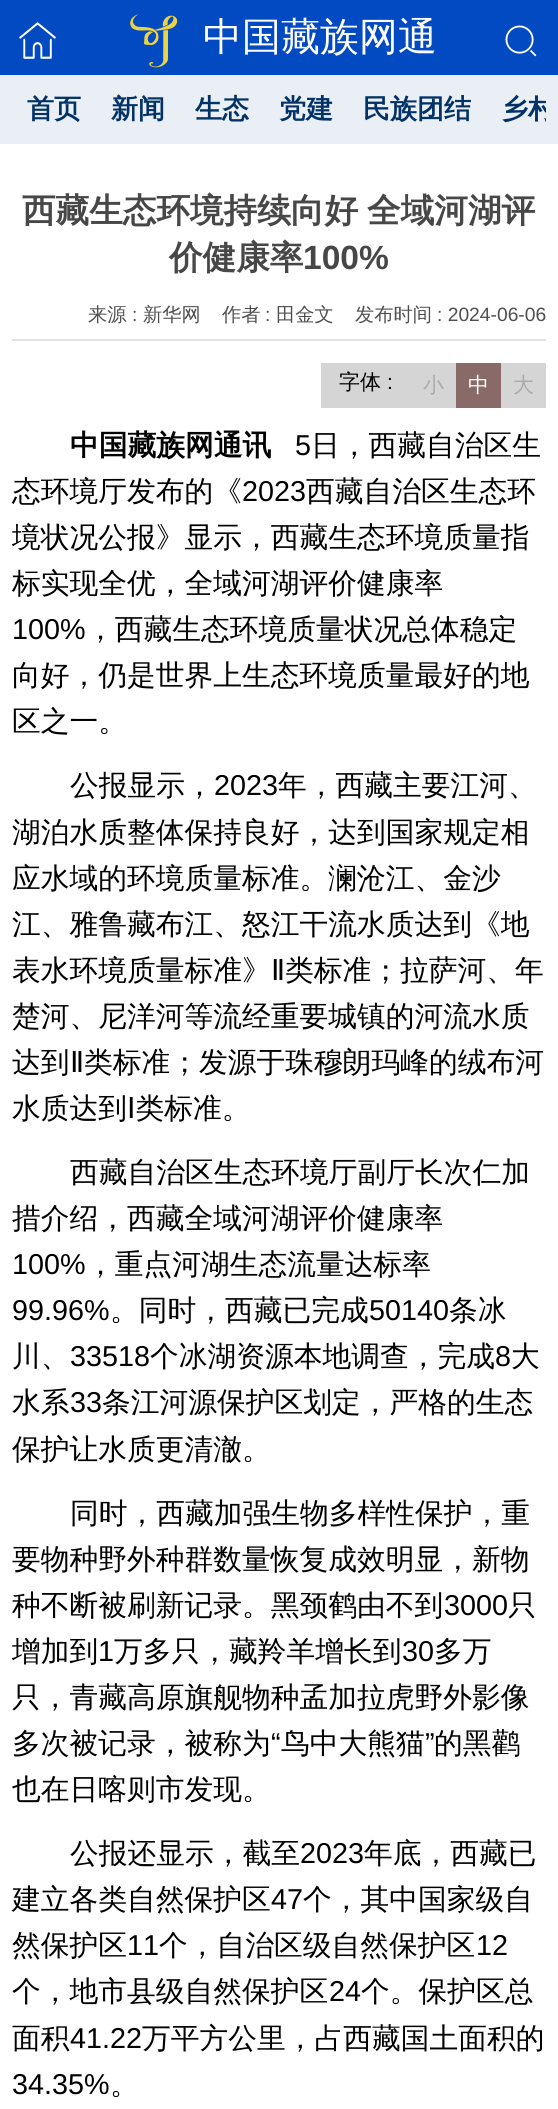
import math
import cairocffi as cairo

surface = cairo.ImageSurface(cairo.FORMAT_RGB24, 558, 2109)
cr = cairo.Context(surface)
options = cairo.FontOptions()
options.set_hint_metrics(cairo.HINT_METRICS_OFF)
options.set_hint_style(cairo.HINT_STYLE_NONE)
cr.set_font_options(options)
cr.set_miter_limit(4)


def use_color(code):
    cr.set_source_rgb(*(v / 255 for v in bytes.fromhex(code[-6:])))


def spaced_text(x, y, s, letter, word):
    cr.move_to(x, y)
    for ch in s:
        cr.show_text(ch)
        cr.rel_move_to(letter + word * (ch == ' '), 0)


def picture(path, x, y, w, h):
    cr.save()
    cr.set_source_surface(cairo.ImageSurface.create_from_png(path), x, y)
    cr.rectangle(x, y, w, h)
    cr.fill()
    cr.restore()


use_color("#ffffff")
cr.paint()
use_color("#024ac2")
cr.rectangle(0, 0, 558, 75)
cr.fill()
picture("img1.png", 19, 22, 37, 37)
picture("img2.png", 130, 14, 48, 54)
cr.select_font_face("WenQuanYi Zen Hei Medium")
cr.set_font_size(39)
use_color("#ffffff")
cr.move_to(203, 50)
cr.show_text("中国藏族网通")
picture("img3.png", 505, 25, 32, 32)
use_color("#e9eff4")
cr.rectangle(0, 75, 558, 69)
cr.fill()
cr.select_font_face("WenQuanYi Zen Hei", cairo.FONT_SLANT_NORMAL, cairo.FONT_WEIGHT_BOLD)
cr.set_font_size(27)
use_color("#033266")
cr.move_to(27, 118)
cr.show_text("首页")
cr.move_to(111, 118)
cr.show_text("新闻")
cr.move_to(195, 118)
cr.show_text("生态")
cr.move_to(279, 118)
cr.show_text("党建")
cr.move_to(363, 118)
cr.show_text("民族团结")
cr.save()
cr.rectangle(501, 75, 45, 69)
cr.clip()
cr.move_to(501, 118)
cr.show_text("乡村")
cr.restore()
cr.set_font_size(33.6)
use_color("#474747")
spaced_text(22, 222, "西藏生态环境持续向好 全域河湖评", 0, -1)
cr.move_to(169, 269)
cr.show_text("价健康率")
cr.select_font_face("Liberation Sans", cairo.FONT_SLANT_NORMAL, cairo.FONT_WEIGHT_BOLD)
cr.move_to(303, 269)
cr.show_text("100%")
cr.select_font_face("WenQuanYi Zen Hei Medium")
cr.set_font_size(19.25)
use_color("#4f4f4f")
cr.move_to(88, 321)
cr.show_text("来源")
cr.select_font_face("Liberation Sans")
cr.move_to(132, 321)
cr.show_text(":")
cr.select_font_face("WenQuanYi Zen Hei Medium")
cr.move_to(143, 321)
cr.show_text("新华网")
cr.move_to(222, 321)
cr.show_text("作者")
cr.select_font_face("Liberation Sans")
cr.move_to(265, 321)
cr.show_text(":")
cr.select_font_face("WenQuanYi Zen Hei Medium")
cr.move_to(276, 321)
cr.show_text("田金文")
cr.move_to(355, 321)
cr.show_text("发布时间")
cr.select_font_face("Liberation Sans")
cr.move_to(437, 321)
cr.show_text(": 2024-06-06")
use_color("#e2e2e2")
cr.rectangle(12, 339, 534, 2)
cr.fill()
use_color("#d6d5d5")
cr.rectangle(321, 363, 225, 45)
cr.fill()
cr.select_font_face("WenQuanYi Zen Hei Medium")
cr.set_font_size(21)
use_color("#000000")
cr.move_to(339, 389)
cr.show_text("字体")
cr.select_font_face("Liberation Sans")
cr.move_to(387, 389)
cr.show_text(":")
cr.select_font_face("WenQuanYi Zen Hei Medium")
use_color("#aaaaaa")
cr.move_to(423, 392)
cr.show_text("小")
use_color("#8a6969")
cr.rectangle(456, 363, 45, 45)
cr.fill()
use_color("#ffffff")
cr.move_to(468, 392)
cr.show_text("中")
use_color("#aaaaaa")
cr.move_to(513, 392)
cr.show_text("大")
cr.select_font_face("WenQuanYi Zen Hei", cairo.FONT_SLANT_NORMAL, cairo.FONT_WEIGHT_BOLD)
cr.set_font_size(28.75)
use_color("#000000")
cr.move_to(70, 455)
cr.show_text("中国藏族网通讯")
cr.select_font_face("Liberation Sans")
cr.move_to(295, 455)
cr.show_text("5")
cr.select_font_face("WenQuanYi Zen Hei Medium")
cr.move_to(311, 455)
cr.show_text("日，西藏自治区生")
cr.move_to(12, 501)
cr.show_text("态环境厅发布的《")
cr.select_font_face("Liberation Sans")
cr.move_to(242, 501)
cr.show_text("2023")
cr.select_font_face("WenQuanYi Zen Hei Medium")
cr.move_to(306, 501)
cr.show_text("西藏自治区生态环")
cr.move_to(12, 547)
cr.show_text("境状况公报》显示，西藏生态环境质量指")
cr.move_to(12, 593)
cr.show_text("标实现全优，全域河湖评价健康率")
cr.select_font_face("Liberation Sans")
cr.move_to(12, 639)
cr.show_text("100%")
cr.select_font_face("WenQuanYi Zen Hei Medium")
cr.move_to(86, 639)
cr.show_text("，西藏生态环境质量状况总体稳定")
cr.move_to(12, 685)
cr.show_text("向好，仍是世界上生态环境质量最好的地")
cr.move_to(12, 731)
cr.show_text("区之一。")
cr.move_to(70, 795)
cr.show_text("公报显示，")
cr.select_font_face("Liberation Sans")
cr.move_to(214, 795)
cr.show_text("2023")
cr.select_font_face("WenQuanYi Zen Hei Medium")
cr.move_to(278, 795)
cr.show_text("年，西藏主要江河、")
cr.move_to(12, 842)
cr.show_text("湖泊水质整体保持良好，达到国家规定相")
cr.move_to(12, 888)
cr.show_text("应水域的环境质量标准。澜沧江、金沙")
cr.move_to(12, 934)
cr.show_text("江、雅鲁藏布江、怒江干流水质达到《地")
cr.move_to(12, 980)
cr.show_text("表水环境质量标准》")
cr.select_font_face("DejaVu Sans")
cr.move_to(271, 980)
cr.show_text("Ⅱ")
cr.select_font_face("WenQuanYi Zen Hei Medium")
cr.move_to(285, 980)
cr.show_text("类标准；拉萨河、年")
cr.move_to(12, 1026)
cr.show_text("楚河、尼洋河等流经重要城镇的河流水质")
cr.move_to(12, 1072)
cr.show_text("达到")
cr.select_font_face("DejaVu Sans")
cr.move_to(70, 1072)
cr.show_text("Ⅱ")
cr.select_font_face("WenQuanYi Zen Hei Medium")
cr.move_to(84, 1072)
cr.show_text("类标准；发源于珠穆朗玛峰的绒布河")
cr.move_to(12, 1118)
cr.show_text("水质达到 类标准。")
cr.select_font_face("DejaVu Sans")
cr.move_to(127, 1118)
cr.show_text("Ⅰ")
cr.select_font_face("WenQuanYi Zen Hei Medium")
cr.move_to(70, 1182)
cr.show_text("西藏自治区生态环境厅副厅长次仁加")
cr.move_to(12, 1228)
cr.show_text("措介绍，西藏全域河湖评价健康率")
cr.select_font_face("Liberation Sans")
cr.move_to(12, 1274)
cr.show_text("100%")
cr.select_font_face("WenQuanYi Zen Hei Medium")
cr.move_to(86, 1274)
cr.show_text("，重点河湖生态流量达标率")
cr.select_font_face("Liberation Sans")
cr.move_to(12, 1320)
cr.show_text("99.96%")
cr.select_font_face("WenQuanYi Zen Hei Medium")
cr.move_to(110, 1320)
cr.show_text("。同时，西藏已完成")
cr.select_font_face("Liberation Sans")
cr.move_to(369, 1320)
cr.show_text("50140")
cr.select_font_face("WenQuanYi Zen Hei Medium")
cr.move_to(449, 1320)
cr.show_text("条冰")
cr.move_to(12, 1366)
cr.show_text("川、")
cr.select_font_face("Liberation Sans")
cr.move_to(70, 1366)
cr.show_text("33518")
cr.select_font_face("WenQuanYi Zen Hei Medium")
cr.move_to(150, 1366)
cr.show_text("个冰湖资源本地调查，完成")
cr.select_font_face("Liberation Sans")
cr.move_to(495, 1366)
cr.show_text("8")
cr.select_font_face("WenQuanYi Zen Hei Medium")
cr.move_to(511, 1366)
cr.show_text("大")
cr.move_to(12, 1412)
cr.show_text("水系")
cr.select_font_face("Liberation Sans")
cr.move_to(70, 1412)
cr.show_text("33")
cr.select_font_face("WenQuanYi Zen Hei Medium")
cr.move_to(102, 1412)
cr.show_text("条江河源保护区划定，严格的生态")
cr.move_to(12, 1459)
cr.show_text("保护让水质更清澈。")
cr.move_to(70, 1523)
cr.show_text("同时，西藏加强生物多样性保护，重")
cr.move_to(12, 1569)
cr.show_text("要物种野外种群数量恢复成效明显，新物")
cr.move_to(12, 1615)
cr.show_text("种不断被刷新记录。黑颈鹤由不到")
cr.select_font_face("Liberation Sans")
cr.move_to(444, 1615)
cr.show_text("3000")
cr.select_font_face("WenQuanYi Zen Hei Medium")
cr.move_to(508, 1615)
cr.show_text("只")
cr.move_to(12, 1661)
cr.show_text("增加到")
cr.select_font_face("Liberation Sans")
cr.move_to(98, 1661)
cr.show_text("1")
cr.select_font_face("WenQuanYi Zen Hei Medium")
cr.move_to(114, 1661)
cr.show_text("万多只，藏羚羊增长到")
cr.select_font_face("Liberation Sans")
cr.move_to(402, 1661)
cr.show_text("30")
cr.select_font_face("WenQuanYi Zen Hei Medium")
cr.move_to(434, 1661)
cr.show_text("多万")
cr.move_to(12, 1707)
cr.show_text("只，青藏高原旗舰物种孟加拉虎野外影像")
cr.move_to(12, 1753)
cr.show_text("多次被记录，被称为")
cr.select_font_face("Liberation Sans")
cr.move_to(271, 1753)
cr.show_text("“")
cr.select_font_face("WenQuanYi Zen Hei Medium")
cr.move_to(281, 1753)
cr.show_text("鸟中大熊猫")
cr.select_font_face("Liberation Sans")
cr.move_to(425, 1753)
cr.show_text("”")
cr.select_font_face("WenQuanYi Zen Hei Medium")
cr.move_to(434, 1753)
cr.show_text("的黑鹳")
cr.move_to(12, 1799)
cr.show_text("也在日喀则市发现。")
cr.move_to(70, 1863)
cr.show_text("公报还显示，截至")
cr.select_font_face("Liberation Sans")
cr.move_to(300, 1863)
cr.show_text("2023")
cr.select_font_face("WenQuanYi Zen Hei Medium")
cr.move_to(364, 1863)
cr.show_text("年底，西藏已")
cr.move_to(12, 1909)
cr.show_text("建立各类自然保护区")
cr.select_font_face("Liberation Sans")
cr.move_to(271, 1909)
cr.show_text("47")
cr.select_font_face("WenQuanYi Zen Hei Medium")
cr.move_to(303, 1909)
cr.show_text("个，其中国家级自")
cr.move_to(12, 1955)
cr.show_text("然保护区")
cr.select_font_face("Liberation Sans")
cr.move_to(127, 1955)
cr.show_text("11")
cr.select_font_face("WenQuanYi Zen Hei Medium")
cr.move_to(159, 1955)
cr.show_text("个，自治区级自然保护区")
cr.select_font_face("Liberation Sans")
cr.move_to(476, 1955)
cr.show_text("12")
cr.select_font_face("WenQuanYi Zen Hei Medium")
cr.move_to(12, 2001)
cr.show_text("个，地市县级自然保护区")
cr.select_font_face("Liberation Sans")
cr.move_to(329, 2001)
cr.show_text("24")
cr.select_font_face("WenQuanYi Zen Hei Medium")
cr.move_to(361, 2001)
cr.show_text("个。保护区总")
cr.move_to(12, 2048)
cr.show_text("面积")
cr.select_font_face("Liberation Sans")
cr.move_to(70, 2048)
cr.show_text("41.22")
cr.select_font_face("WenQuanYi Zen Hei Medium")
cr.move_to(142, 2048)
cr.show_text("万平方公里，占西藏国土面积的")
cr.select_font_face("Liberation Sans")
cr.move_to(12, 2094)
cr.show_text("34.35%")
cr.select_font_face("WenQuanYi Zen Hei Medium")
cr.move_to(110, 2094)
cr.show_text("。")
surface.write_to_png("result.png")
